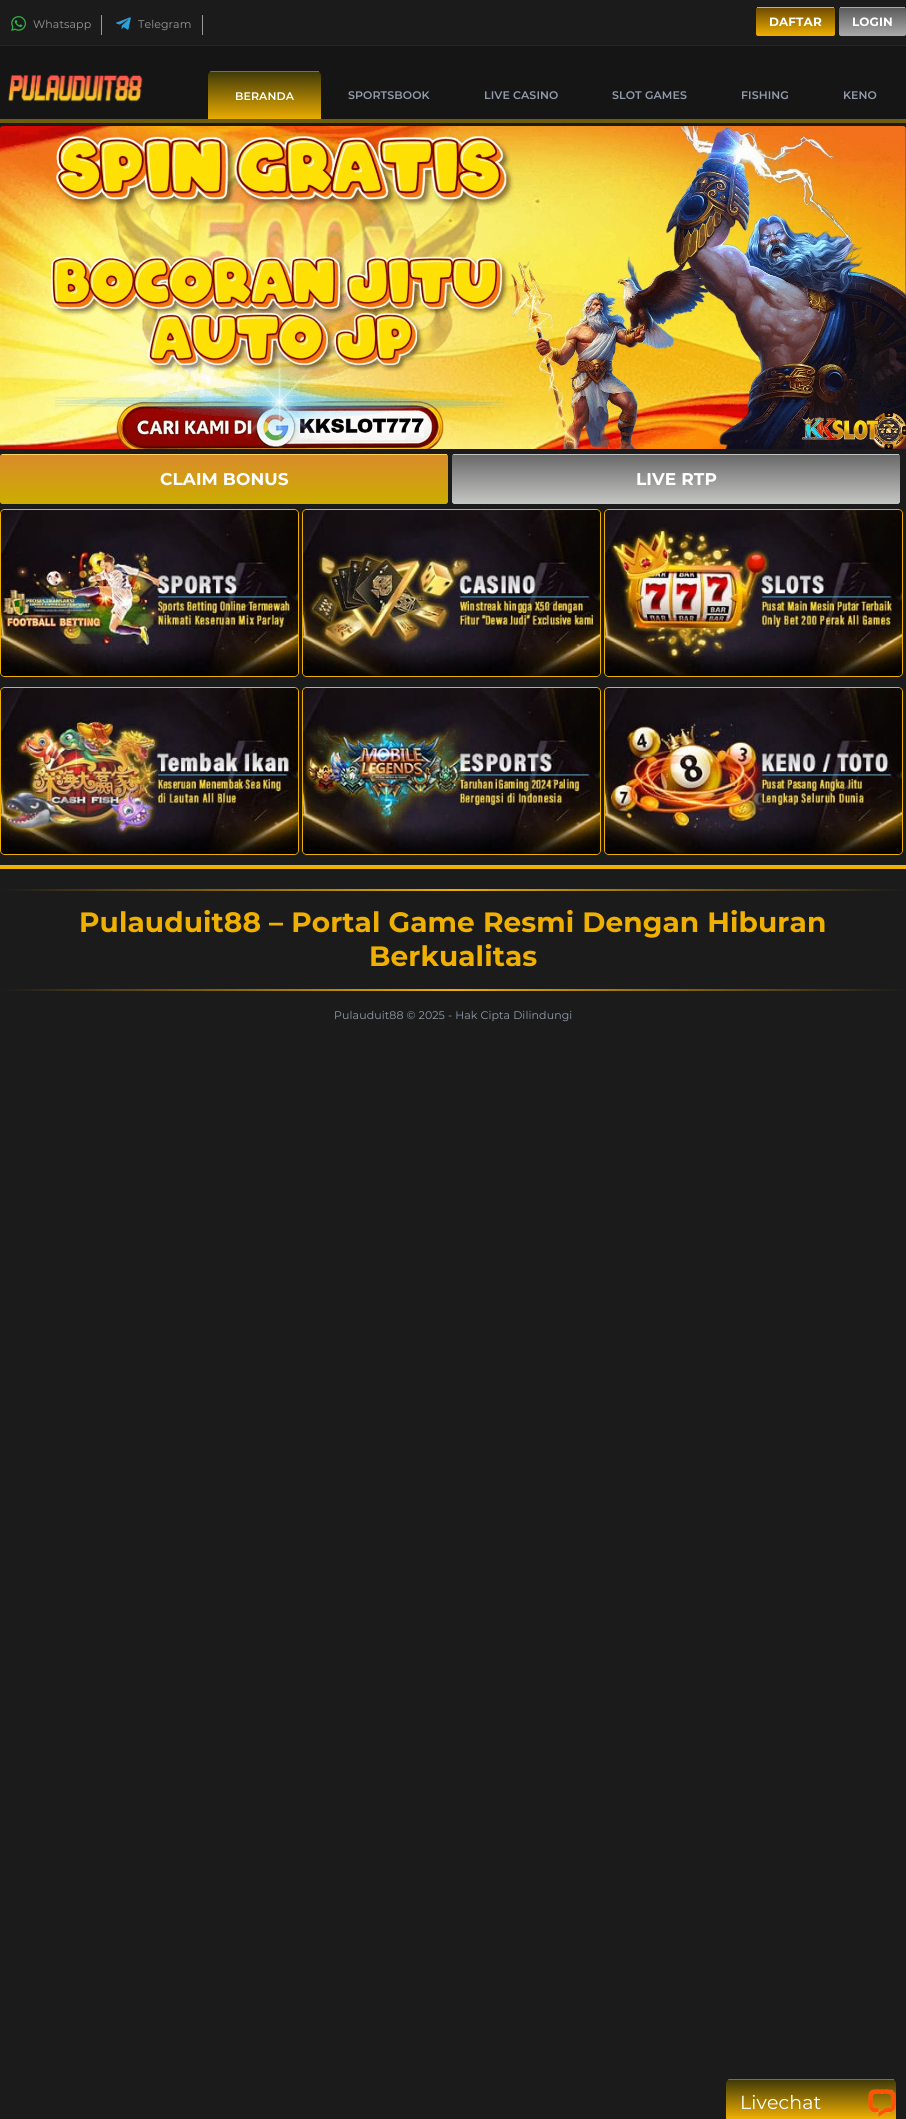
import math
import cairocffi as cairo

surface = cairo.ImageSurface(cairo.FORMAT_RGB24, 906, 2119)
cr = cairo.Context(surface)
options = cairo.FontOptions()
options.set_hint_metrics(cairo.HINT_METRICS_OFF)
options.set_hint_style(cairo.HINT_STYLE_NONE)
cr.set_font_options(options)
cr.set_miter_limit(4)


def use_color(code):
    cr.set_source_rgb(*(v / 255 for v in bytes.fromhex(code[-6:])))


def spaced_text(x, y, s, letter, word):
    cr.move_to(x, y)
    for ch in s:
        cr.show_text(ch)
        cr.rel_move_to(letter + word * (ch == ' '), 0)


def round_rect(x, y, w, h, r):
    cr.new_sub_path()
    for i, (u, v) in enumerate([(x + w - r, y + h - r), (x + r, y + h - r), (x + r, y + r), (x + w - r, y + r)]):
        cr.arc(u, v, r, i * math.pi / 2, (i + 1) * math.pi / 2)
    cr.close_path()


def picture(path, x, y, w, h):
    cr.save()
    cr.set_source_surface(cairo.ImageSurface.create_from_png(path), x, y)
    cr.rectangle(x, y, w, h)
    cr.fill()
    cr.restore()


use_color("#1b1b1b")
cr.paint()
use_color("#262626")
cr.rectangle(0, 45, 906, 1)
cr.fill()
use_color("#999999")
cr.rectangle(101, 15, 1, 20)
cr.fill()
picture("img1.png", 11, 16, 15, 15)
cr.select_font_face("Montserrat")
cr.set_font_size(11)
spaced_text(33, 28, "Whatsapp", 0.1, 0)
cr.rectangle(202, 15, 1, 20)
cr.fill()
picture("img2.png", 116, 17, 15, 13)
spaced_text(138, 28, "Telegram", 0.1, 0)
cr.save()
round_rect(756, 7, 79, 29, 2)
cr.clip()
gradient = cairo.LinearGradient(796, 8, 796, 36)
gradient.add_color_stop_rgba(0, 0.431, 0.294, 0, 1)
gradient.add_color_stop_rgba(1, 0.941, 0.69, 0, 1)
cr.set_source(gradient)
cr.new_path()
cr.move_to(756, 8)
cr.line_to(835, 8)
cr.line_to(835, 34)
cr.curve_to(835, 35, 834, 36, 833, 36)
cr.line_to(758, 36)
cr.curve_to(757, 36, 756, 35, 756, 34)
cr.close_path()
cr.fill()
cr.restore()
use_color("#cac10f")
cr.rectangle(757, 7, 77, 1)
cr.fill()
cr.select_font_face("Montserrat", cairo.FONT_SLANT_NORMAL, cairo.FONT_WEIGHT_BOLD)
cr.set_font_size(12)
use_color("#ffffff")
spaced_text(769, 26, "DAFTAR", 0.1, 0)
cr.save()
round_rect(839, 7, 67, 29, 2)
cr.clip()
gradient = cairo.LinearGradient(873, 8, 873, 36)
gradient.add_color_stop_rgba(0, 0.357, 0.357, 0.357, 1)
gradient.add_color_stop_rgba(1, 0.667, 0.667, 0.667, 1)
cr.set_source(gradient)
cr.new_path()
cr.move_to(839, 8)
cr.line_to(906, 8)
cr.line_to(906, 34)
cr.curve_to(906, 35, 905, 36, 904, 36)
cr.line_to(841, 36)
cr.curve_to(840, 36, 839, 35, 839, 34)
cr.close_path()
cr.fill()
cr.restore()
use_color("#aaaaaa")
cr.rectangle(840, 7, 65, 1)
cr.fill()
use_color("#ffffff")
spaced_text(852, 26, "LOGIN", 0.1, 0)
use_color("#151515")
cr.rectangle(0, 46, 906, 73)
cr.fill()
use_color("#6e5c0f")
cr.rectangle(0, 119, 906, 4)
cr.fill()
picture("img3.png", 8, 74, 135, 28)
cr.save()
cr.new_path()
cr.move_to(213, 71)
cr.line_to(316, 71)
cr.curve_to(319, 71, 321, 73, 321, 76)
cr.line_to(321, 121)
cr.line_to(208, 121)
cr.line_to(208, 76)
cr.curve_to(208, 73, 210, 71, 213, 71)
cr.close_path()
cr.clip()
gradient = cairo.LinearGradient(265, 23, 265, 72)
gradient.add_color_stop_rgba(0, 0.255, 0.231, 0.031, 1)
gradient.add_color_stop_rgba(1, 0.941, 0.69, 0, 1)
cr.set_source(gradient)
cr.rectangle(208, 71, 3, 1)
cr.fill()
gradient = cairo.LinearGradient(265, 72, 265, 121)
gradient.add_color_stop_rgba(0, 0.255, 0.231, 0.031, 1)
gradient.add_color_stop_rgba(1, 0.941, 0.69, 0, 1)
cr.set_source(gradient)
cr.rectangle(208, 72, 113, 47)
cr.fill()
cr.restore()
use_color("#777e0f")
cr.rectangle(211, 71, 108, 1)
cr.fill()
cr.select_font_face("Montserrat SemiBold")
cr.set_font_size(11)
use_color("#ffffff")
spaced_text(235, 100, "BERANDA", 0.1, 0)
use_color("#929cac")
spaced_text(348, 99, "SPORTSBOOK", 0.1, 0)
spaced_text(484, 99, "LIVE CASINO", 0.1, 0)
spaced_text(612, 99, "SLOT GAMES", 0.1, 0)
spaced_text(741, 99, "FISHING", 0.1, 0)
spaced_text(843, 99, "KENO", 0.1, 0)
picture("img4.png", 0, 126, 906, 323)
use_color("#da9c2b")
round_rect(0, 454, 448, 50, 3)
cr.fill()
cr.save()
round_rect(0, 454, 448, 50, 3)
cr.clip()
gradient = cairo.LinearGradient(224, 406, 224, 455)
gradient.add_color_stop_rgba(0, 0.855, 0.549, 0.169, 1)
gradient.add_color_stop_rgba(1, 0.8, 0.678, 0, 1)
cr.set_source(gradient)
cr.rectangle(0, 454, 448, 1)
cr.fill()
gradient = cairo.LinearGradient(224, 455, 224, 504)
gradient.add_color_stop_rgba(0, 0.855, 0.549, 0.169, 1)
gradient.add_color_stop_rgba(1, 0.8, 0.678, 0, 1)
cr.set_source(gradient)
cr.new_path()
cr.move_to(0, 455)
cr.line_to(448, 455)
cr.line_to(448, 501)
cr.curve_to(448, 502.5, 446.5, 504, 445, 504)
cr.line_to(3, 504)
cr.curve_to(1.5, 504, 0, 502.5, 0, 501)
cr.close_path()
cr.fill()
cr.restore()
use_color("#ffd55f")
cr.rectangle(2, 454, 445, 1)
cr.fill()
cr.select_font_face("Montserrat", cairo.FONT_SLANT_NORMAL, cairo.FONT_WEIGHT_BOLD)
cr.set_font_size(17)
use_color("#ffffff")
spaced_text(160, 485, "CLAIM BONUS", 0.1, 0)
use_color("#c2c2c2")
round_rect(452, 454, 448, 50, 3)
cr.fill()
cr.save()
round_rect(452, 454, 448, 50, 3)
cr.clip()
gradient = cairo.LinearGradient(676, 406, 676, 455)
gradient.add_color_stop_rgba(0, 0.412, 0.412, 0.412, 1)
gradient.add_color_stop_rgba(1, 0.773, 0.78, 0.769, 1)
cr.set_source(gradient)
cr.rectangle(452, 454, 448, 1)
cr.fill()
gradient = cairo.LinearGradient(676, 455, 676, 504)
gradient.add_color_stop_rgba(0, 0.412, 0.412, 0.412, 1)
gradient.add_color_stop_rgba(1, 0.773, 0.78, 0.769, 1)
cr.set_source(gradient)
cr.new_path()
cr.move_to(452, 455)
cr.line_to(900, 455)
cr.line_to(900, 501)
cr.curve_to(900, 502.5, 898.5, 504, 897, 504)
cr.line_to(455, 504)
cr.curve_to(453.5, 504, 452, 502.5, 452, 501)
cr.close_path()
cr.fill()
cr.restore()
use_color("#c4c4c4")
cr.rectangle(454, 454, 445, 1)
cr.fill()
use_color("#ffffff")
spaced_text(636, 485, "LIVE RTP", 0.1, 0)
round_rect(0.5, 509.5, 298, 167, 4.5)
use_color("#f0b000")
cr.set_line_width(1)
cr.stroke()
picture("img5.png", 1, 510, 297, 166)
round_rect(302.5, 509.5, 298, 167, 4.5)
cr.stroke()
picture("img6.png", 303, 510, 297, 166)
round_rect(604.5, 509.5, 298, 167, 4.5)
cr.stroke()
picture("img7.png", 605, 510, 297, 166)
round_rect(0.5, 687.5, 298, 167, 4.5)
cr.stroke()
picture("img8.png", 1, 688, 297, 166)
round_rect(302.5, 687.5, 298, 167, 4.5)
cr.stroke()
picture("img9.png", 303, 688, 297, 166)
round_rect(604.5, 687.5, 298, 167, 4.5)
cr.stroke()
picture("img10.png", 605, 688, 297, 166)
cr.rectangle(0, 865, 906, 4)
cr.fill()
cr.save()
round_rect(0, 889, 906, 150, 3)
cr.clip()
gradient = cairo.LinearGradient(0, 890, 906, 890)
gradient.add_color_stop_rgba(0, 0.106, 0.106, 0.106, 1)
gradient.add_color_stop_rgba(0.5, 0.941, 0.69, 0, 1)
gradient.add_color_stop_rgba(1, 0.106, 0.106, 0.106, 1)
cr.set_source(gradient)
cr.new_path()
cr.move_to(0, 889)
cr.line_to(906, 889)
cr.curve_to(906, 890, 905, 891, 904, 891)
cr.line_to(2, 891)
cr.curve_to(1, 891, 0, 890, 0, 889)
cr.close_path()
cr.fill()
cr.restore()
cr.set_font_size(28)
spaced_text(79, 932, "Pulauduit88 – Portal Game Resmi Dengan Hiburan", 0.1, 0)
spaced_text(369, 966, "Berkualitas", 0.1, 0)
gradient = cairo.LinearGradient(0, 990, 906, 990)
gradient.add_color_stop_rgba(0, 0.106, 0.106, 0.106, 1)
gradient.add_color_stop_rgba(0.5, 0.941, 0.69, 0, 1)
gradient.add_color_stop_rgba(1, 0.106, 0.106, 0.106, 1)
cr.set_source(gradient)
cr.new_path()
cr.move_to(0, 989)
cr.line_to(906, 989)
cr.curve_to(906, 990, 905, 991, 904, 991)
cr.line_to(2, 991)
cr.curve_to(1, 991, 0, 990, 0, 989)
cr.close_path()
cr.fill()
cr.select_font_face("Montserrat")
cr.set_font_size(11)
use_color("#929cac")
spaced_text(334, 1019, "Pulauduit88 © 2025 - Hak Cipta Dilindungi", 0.1, 0)
cr.save()
cr.new_path()
cr.move_to(731, 2079)
cr.line_to(891, 2079)
cr.curve_to(894, 2079, 896, 2081, 896, 2084)
cr.line_to(896, 2119)
cr.line_to(726, 2119)
cr.line_to(726, 2084)
cr.curve_to(726, 2081, 728, 2079, 731, 2079)
cr.close_path()
cr.clip()
gradient = cairo.LinearGradient(811, 2041, 811, 2080)
gradient.add_color_stop_rgba(0, 0.255, 0.231, 0.031, 1)
gradient.add_color_stop_rgba(1, 0.941, 0.69, 0, 1)
cr.set_source(gradient)
cr.rectangle(726, 2079, 3, 1)
cr.fill()
gradient = cairo.LinearGradient(811, 2080, 811, 2119)
gradient.add_color_stop_rgba(0, 0.255, 0.231, 0.031, 1)
gradient.add_color_stop_rgba(1, 0.941, 0.69, 0, 1)
cr.set_source(gradient)
cr.rectangle(726, 2080, 170, 39)
cr.fill()
cr.restore()
use_color("#777e0f")
cr.rectangle(729, 2079, 165, 1)
cr.fill()
cr.set_font_size(19)
use_color("#ffffff")
spaced_text(740, 2109, "Livechat", 0.1, 0)
picture("img11.png", 868, 2089, 28, 28)
surface.write_to_png("result.png")
